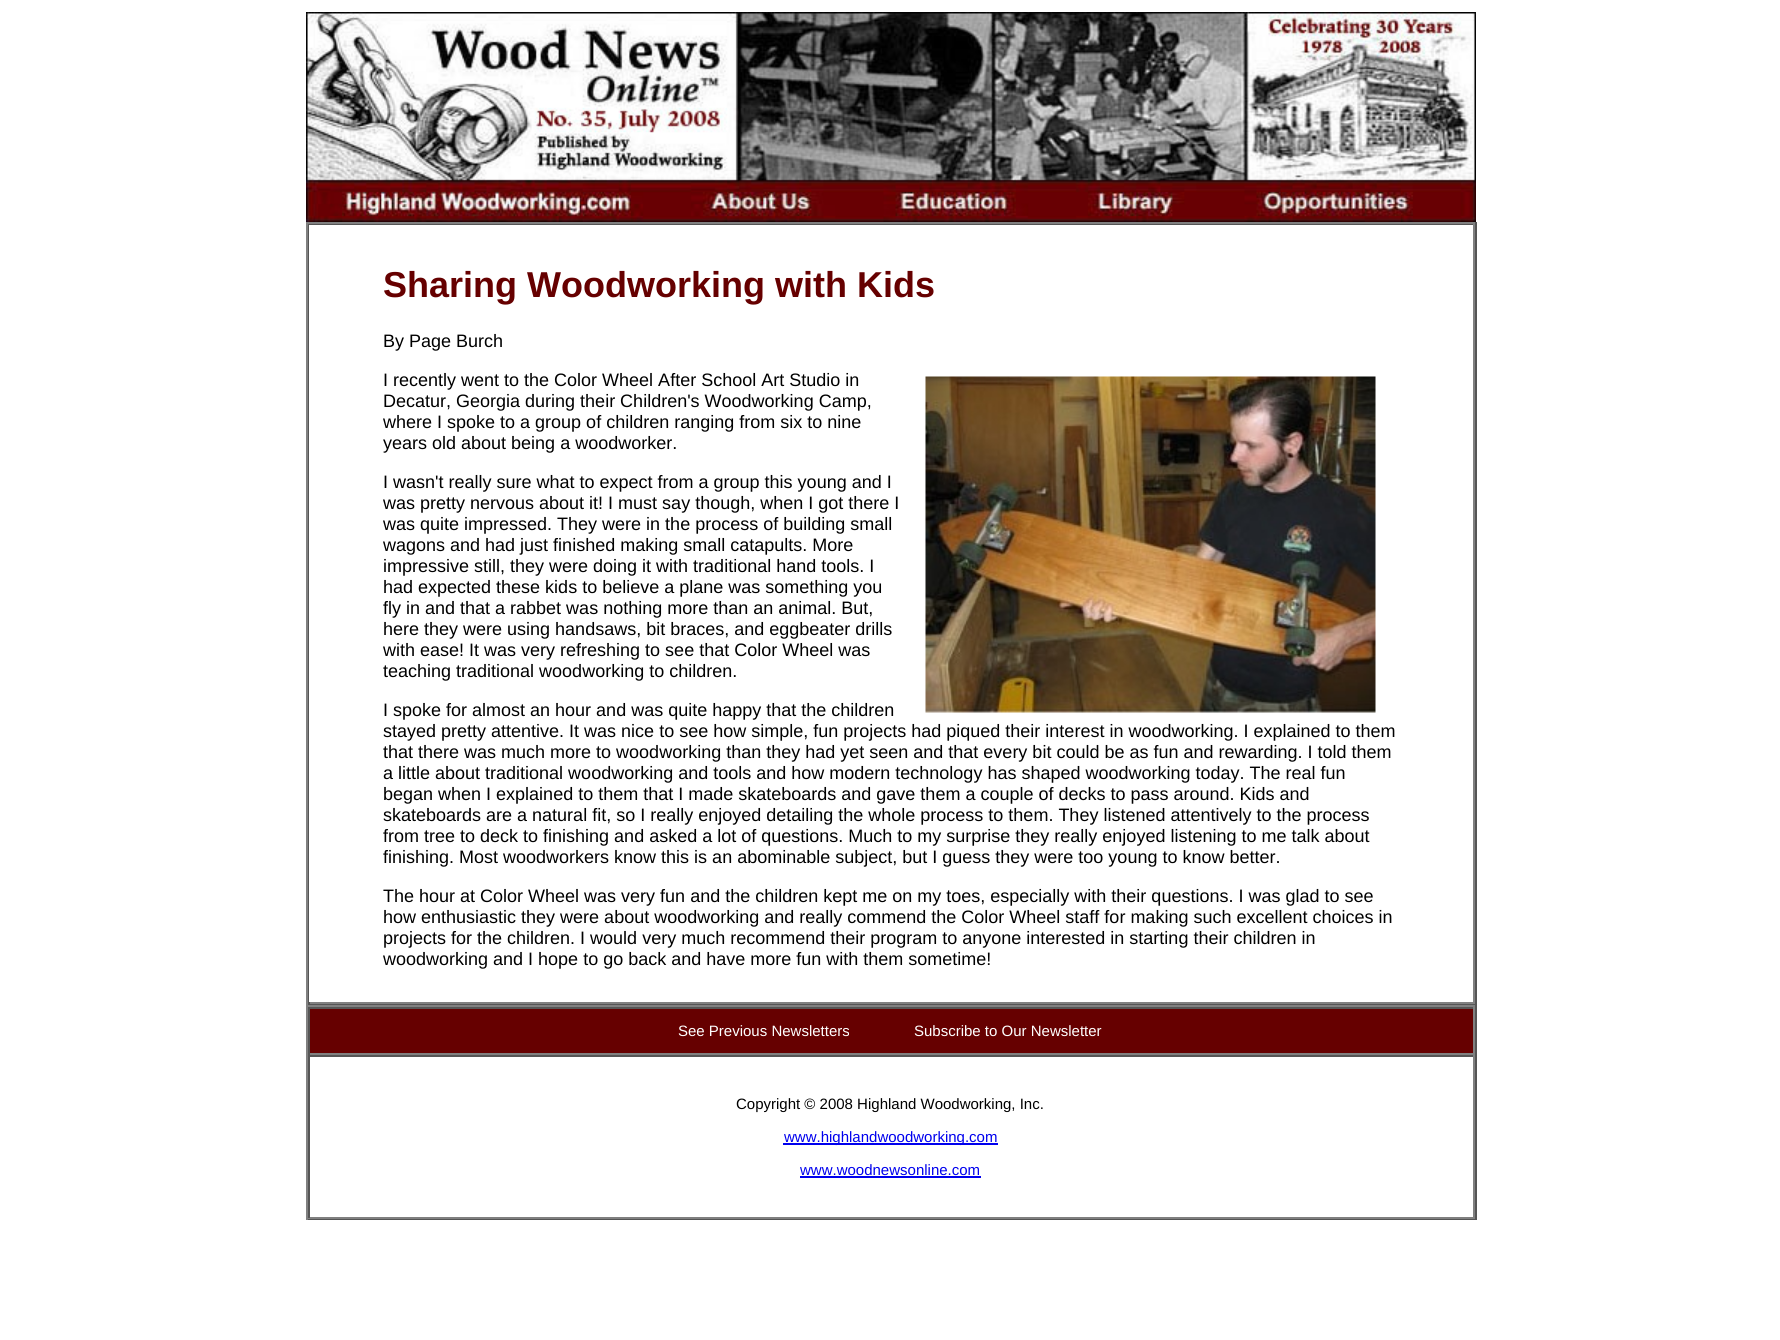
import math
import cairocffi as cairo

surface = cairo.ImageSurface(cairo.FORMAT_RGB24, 1780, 1340)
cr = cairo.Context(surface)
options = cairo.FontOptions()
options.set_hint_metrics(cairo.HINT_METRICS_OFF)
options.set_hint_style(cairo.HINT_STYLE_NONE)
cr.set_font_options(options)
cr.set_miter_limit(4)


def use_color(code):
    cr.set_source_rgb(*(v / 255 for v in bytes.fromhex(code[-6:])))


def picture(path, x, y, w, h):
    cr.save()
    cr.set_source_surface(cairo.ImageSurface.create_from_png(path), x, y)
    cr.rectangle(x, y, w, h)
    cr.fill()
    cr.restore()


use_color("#ffffff")
cr.paint()
picture("img1.png", 306, 12, 1170, 210)
use_color("#808080")
cr.rectangle(306, 222, 1170, 2)
cr.fill()
use_color("#555555")
cr.rectangle(1475, 222, 2, 783)
cr.fill()
cr.rectangle(306, 1004, 1170, 1)
cr.fill()
use_color("#808080")
cr.rectangle(306, 222, 2, 783)
cr.fill()
use_color("#555555")
cr.rectangle(308, 224, 1167, 1)
cr.fill()
use_color("#808080")
cr.rectangle(1473, 224, 2, 780)
cr.fill()
cr.rectangle(308, 1002, 1167, 2)
cr.fill()
use_color("#555555")
cr.rectangle(308, 224, 2, 780)
cr.fill()
use_color("#ffffff")
cr.rectangle(309, 225, 1, 777)
cr.fill()
cr.select_font_face("Liberation Sans", cairo.FONT_SLANT_NORMAL, cairo.FONT_WEIGHT_BOLD)
cr.set_font_size(36)
use_color("#660000")
cr.move_to(383, 297)
cr.show_text("Sharing Woodworking with Kids")
cr.select_font_face("Liberation Sans")
cr.set_font_size(18)
use_color("#000000")
cr.move_to(383, 347)
cr.show_text("By Page Burch")
cr.move_to(383, 386)
cr.show_text("I recently went to the Color Wheel After School Art Studio in")
picture("img2.png", 925, 376, 451, 337)
cr.move_to(383, 407)
cr.show_text("Decatur, Georgia during their Children's Woodworking Camp,")
cr.move_to(383, 428)
cr.show_text("where I spoke to a group of children ranging from six to nine")
cr.move_to(383, 449)
cr.show_text("years old about being a woodworker.")
cr.move_to(383, 488)
cr.show_text("I wasn't really sure what to expect from a group this young and I")
cr.move_to(383, 509)
cr.show_text("was pretty nervous about it! I must say though, when I got there I")
cr.move_to(383, 530)
cr.show_text("was quite impressed. They were in the process of building small")
cr.move_to(383, 551)
cr.show_text("wagons and had just finished making small catapults. More")
cr.move_to(383, 572)
cr.show_text("impressive still, they were doing it with traditional hand tools. I")
cr.move_to(383, 593)
cr.show_text("had expected these kids to believe a plane was something you")
cr.move_to(383, 614)
cr.show_text("fly in and that a rabbet was nothing more than an animal. But,")
cr.move_to(383, 635)
cr.show_text("here they were using handsaws, bit braces, and eggbeater drills")
cr.move_to(383, 656)
cr.show_text("with ease! It was very refreshing to see that Color Wheel was")
cr.move_to(383, 677)
cr.show_text("teaching traditional woodworking to children.")
cr.move_to(383, 716)
cr.show_text("I spoke for almost an hour and was quite happy that the children")
cr.move_to(383, 737)
cr.show_text("stayed pretty attentive. It was nice to see how simple, fun projects had piqued their interest in woodworking. I explained to them")
cr.move_to(383, 758)
cr.show_text("that there was much more to woodworking than they had yet seen and that every bit could be as fun and rewarding. I told them")
cr.move_to(383, 779)
cr.show_text("a little about traditional woodworking and tools and how modern technology has shaped woodworking today. The real fun")
cr.move_to(383, 800)
cr.show_text("began when I explained to them that I made skateboards and gave them a couple of decks to pass around. Kids and")
cr.move_to(383, 821)
cr.show_text("skateboards are a natural fit, so I really enjoyed detailing the whole process to them. They listened attentively to the process")
cr.move_to(383, 842)
cr.show_text("from tree to deck to finishing and asked a lot of questions. Much to my surprise they really enjoyed listening to me talk about")
cr.move_to(383, 863)
cr.show_text("finishing. Most woodworkers know this is an abominable subject, but I guess they were too young to know better.")
cr.move_to(383, 902)
cr.show_text("The hour at Color Wheel was very fun and the children kept me on my toes, especially with their questions. I was glad to see")
cr.move_to(383, 923)
cr.show_text("how enthusiastic they were about woodworking and really commend the Color Wheel staff for making such excellent choices in")
cr.move_to(383, 944)
cr.show_text("projects for the children. I would very much recommend their program to anyone interested in starting their children in")
cr.move_to(383, 965)
cr.show_text("woodworking and I hope to go back and have more fun with them sometime!")
use_color("#808080")
cr.rectangle(306, 1005, 1170, 2)
cr.fill()
use_color("#555555")
cr.rectangle(1475, 1005, 2, 215)
cr.fill()
cr.rectangle(306, 1218, 1170, 2)
cr.fill()
use_color("#808080")
cr.rectangle(306, 1005, 2, 215)
cr.fill()
use_color("#660000")
cr.rectangle(310, 1009, 1163, 44)
cr.fill()
use_color("#555555")
cr.rectangle(308, 1007, 1167, 2)
cr.fill()
use_color("#808080")
cr.rectangle(1473, 1007, 2, 48)
cr.fill()
cr.rectangle(308, 1053, 1167, 2)
cr.fill()
use_color("#555555")
cr.rectangle(308, 1007, 2, 48)
cr.fill()
cr.set_font_size(15)
use_color("#ffffff")
cr.move_to(678, 1036)
cr.show_text("See Previous Newsletters")
cr.move_to(914, 1036)
cr.show_text("Subscribe to Our Newsletter")
use_color("#555555")
cr.rectangle(308, 1055, 1167, 2)
cr.fill()
use_color("#808080")
cr.rectangle(1473, 1055, 2, 163)
cr.fill()
cr.rectangle(308, 1217, 1167, 2)
cr.fill()
use_color("#555555")
cr.rectangle(308, 1055, 2, 163)
cr.fill()
use_color("#000000")
cr.move_to(736, 1109)
cr.show_text("Copyright © 2008 Highland Woodworking, Inc.")
use_color("#0000ee")
cr.rectangle(783, 1143, 215, 2)
cr.fill()
cr.move_to(784, 1142)
cr.show_text("www.highlandwoodworking.com")
cr.move_to(800, 1175)
cr.show_text("www.woodnewsonline.com")
cr.rectangle(800, 1176, 181, 2)
cr.fill()
surface.write_to_png("result.png")
